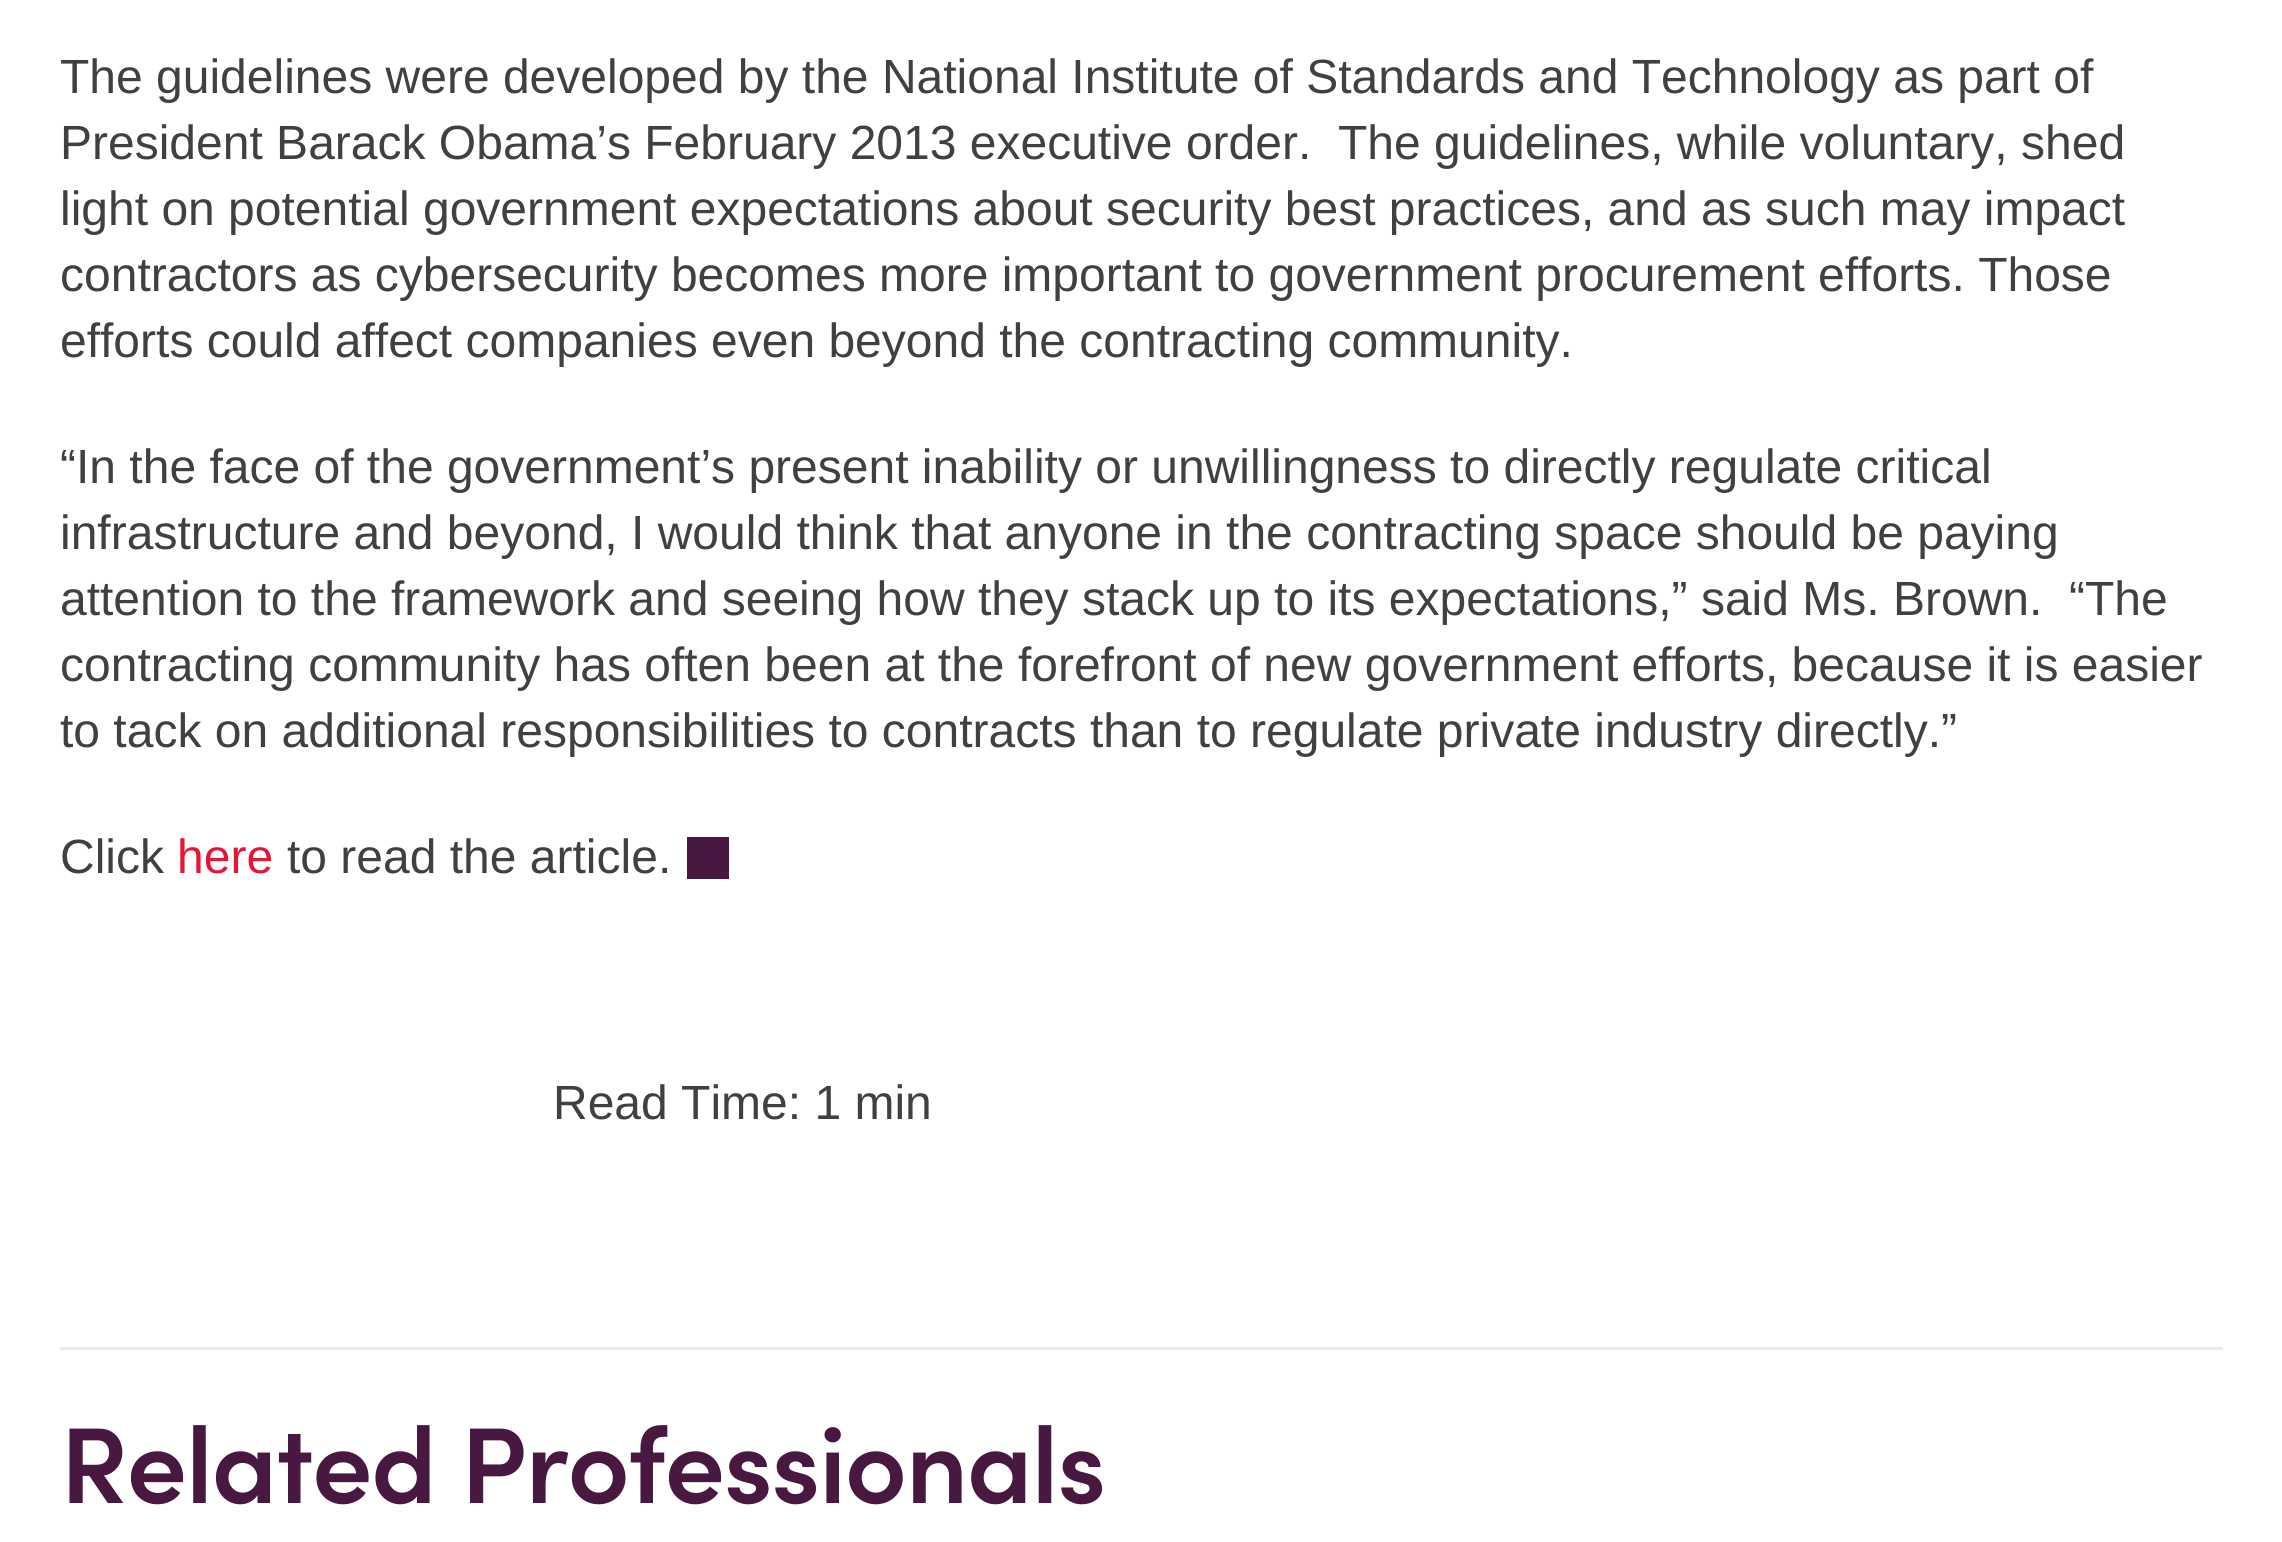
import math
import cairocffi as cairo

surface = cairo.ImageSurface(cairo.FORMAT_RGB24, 2282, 1542)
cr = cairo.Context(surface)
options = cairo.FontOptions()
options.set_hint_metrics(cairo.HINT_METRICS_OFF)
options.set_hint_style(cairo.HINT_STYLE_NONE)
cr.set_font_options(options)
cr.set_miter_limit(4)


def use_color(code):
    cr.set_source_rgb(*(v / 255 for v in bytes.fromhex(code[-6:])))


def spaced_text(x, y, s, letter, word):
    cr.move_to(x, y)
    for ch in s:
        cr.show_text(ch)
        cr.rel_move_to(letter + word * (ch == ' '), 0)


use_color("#ffffff")
cr.paint()
cr.select_font_face("Liberation Sans")
cr.set_font_size(48)
use_color("#404040")
cr.move_to(60, 93)
cr.show_text("The guidelines were developed by the National Institute of Standards and Technology as part of")
cr.move_to(60, 159)
cr.show_text("President Barack Obama’s February 2013 executive order.  The guidelines, while voluntary, shed")
cr.move_to(60, 225)
cr.show_text("light on potential government expectations about security best practices, and as such may impact")
cr.move_to(60, 291)
cr.show_text("contractors as cybersecurity becomes more important to government procurement efforts. Those")
cr.move_to(60, 357)
cr.show_text("efforts could affect companies even beyond the contracting community.")
cr.move_to(60, 483)
cr.show_text("“In the face of the government’s present inability or unwillingness to directly regulate critical")
cr.move_to(60, 549)
cr.show_text("infrastructure and beyond, I would think that anyone in the contracting space should be paying")
cr.move_to(60, 615)
cr.show_text("attention to the framework and seeing how they stack up to its expectations,” said Ms. Brown.  “The")
cr.move_to(60, 681)
cr.show_text("contracting community has often been at the forefront of new government efforts, because it is easier")
cr.move_to(60, 747)
cr.show_text("to tack on additional responsibilities to contracts than to regulate private industry directly.”")
cr.move_to(60, 873)
cr.show_text("Click")
use_color("#e71435")
cr.move_to(177, 873)
cr.show_text("here")
use_color("#404040")
cr.move_to(287, 873)
cr.show_text("to read the article.")
use_color("#491840")
cr.rectangle(687, 837, 42, 42)
cr.fill()
use_color("#404040")
cr.move_to(553, 1119)
cr.show_text("Read Time: 1 min")
use_color("#e9eaeb")
cr.rectangle(60, 1347, 2163, 3)
cr.fill()
cr.select_font_face("Sofia SemiBold")
cr.set_font_size(108)
use_color("#491840")
spaced_text(60, 1503, "Related Professionals", -1.5, 0)
surface.write_to_png("result.png")
